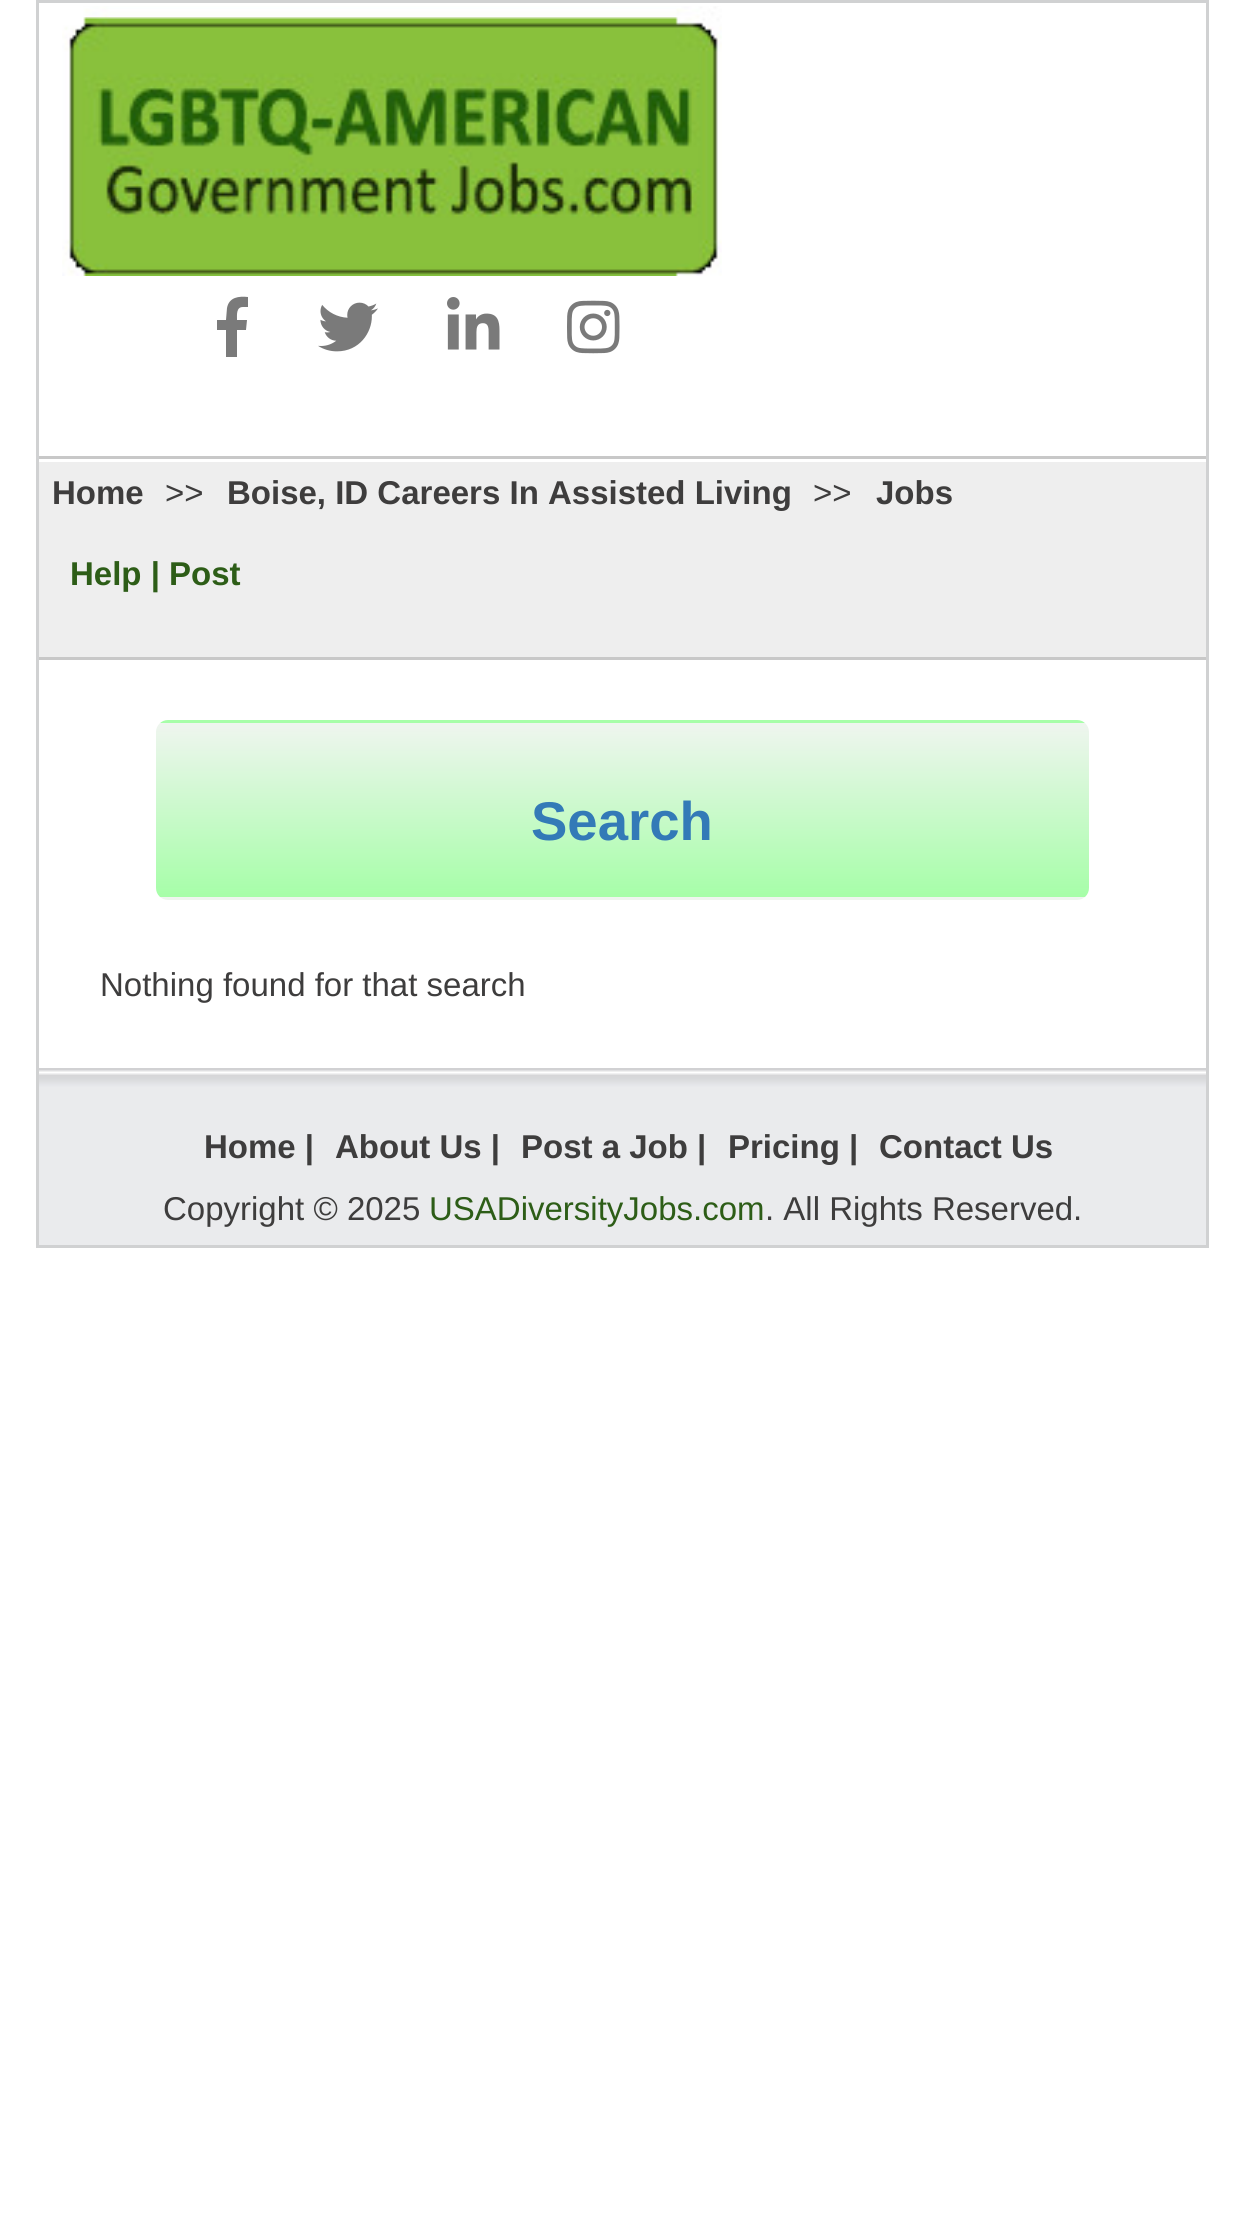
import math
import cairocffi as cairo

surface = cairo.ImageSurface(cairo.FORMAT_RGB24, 1243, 2233)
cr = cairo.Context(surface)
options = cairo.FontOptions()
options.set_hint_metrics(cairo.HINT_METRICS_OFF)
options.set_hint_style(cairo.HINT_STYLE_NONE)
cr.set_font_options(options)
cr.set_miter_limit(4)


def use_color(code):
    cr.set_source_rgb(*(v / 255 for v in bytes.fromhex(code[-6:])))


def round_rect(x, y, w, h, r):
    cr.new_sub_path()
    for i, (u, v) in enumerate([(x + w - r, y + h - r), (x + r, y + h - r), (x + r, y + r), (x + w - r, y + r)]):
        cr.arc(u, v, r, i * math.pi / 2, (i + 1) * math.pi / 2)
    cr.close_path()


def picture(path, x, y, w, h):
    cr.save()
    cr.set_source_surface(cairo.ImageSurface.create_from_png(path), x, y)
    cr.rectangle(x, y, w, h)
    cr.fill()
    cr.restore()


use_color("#ffffff")
cr.paint()
use_color("#d0d1d2")
cr.rectangle(36, 0, 1173, 3)
cr.fill()
cr.rectangle(1206, 0, 3, 1248)
cr.fill()
cr.rectangle(36, 1245, 1173, 3)
cr.fill()
cr.rectangle(36, 0, 3, 1248)
cr.fill()
picture("img1.png", 62, 6, 660, 270)
use_color("#7a7a7a")
cr.new_path()
cr.move_to(243, 307)
cr.line_to(248, 307)
cr.line_to(248, 297)
cr.curve_to(239, 296, 229, 297, 227, 308)
cr.line_to(226, 320)
cr.line_to(217, 320)
cr.line_to(217, 330)
cr.line_to(226, 330)
cr.line_to(226, 357)
cr.line_to(237, 357)
cr.line_to(237, 330)
cr.line_to(246, 330)
cr.line_to(247, 320)
cr.line_to(237, 320)
cr.curve_to(237, 315, 236, 307, 243, 307)
cr.close_path()
cr.fill()
picture("img2.png", 318, 302, 60, 50)
picture("img3.png", 447, 297, 53, 53)
picture("img4.png", 567, 300, 53, 54)
use_color("#eeeeee")
cr.rectangle(39, 462, 1167, 195)
cr.fill()
use_color("#c8c8c8")
cr.rectangle(39, 456, 1167, 3)
cr.fill()
cr.rectangle(39, 657, 1167, 3)
cr.fill()
cr.select_font_face("Liberation Sans", cairo.FONT_SLANT_NORMAL, cairo.FONT_WEIGHT_BOLD)
cr.set_font_size(33)
use_color("#3e3d3d")
cr.move_to(52, 504)
cr.show_text("Home")
cr.select_font_face("Liberation Sans")
cr.move_to(165, 504)
cr.show_text(">>")
cr.select_font_face("Liberation Sans", cairo.FONT_SLANT_NORMAL, cairo.FONT_WEIGHT_BOLD)
cr.move_to(227, 504)
cr.show_text("Boise, ID Careers In Assisted Living")
cr.select_font_face("Liberation Sans")
cr.move_to(813, 504)
cr.show_text(">>")
cr.select_font_face("Liberation Sans", cairo.FONT_SLANT_NORMAL, cairo.FONT_WEIGHT_BOLD)
cr.move_to(876, 504)
cr.show_text("Jobs")
use_color("#2d5d17")
cr.move_to(70, 585)
cr.show_text("Help | Post")
cr.save()
round_rect(156, 720, 933, 180, 12)
cr.clip()
gradient = cairo.LinearGradient(623, 723, 623, 549)
gradient.add_color_stop_rgba(0, 0.651, 0.996, 0.659, 1)
gradient.add_color_stop_rgba(1, 0.937, 0.961, 0.937, 1)
cr.set_source(gradient)
cr.rectangle(156, 720, 933, 3)
cr.fill()
gradient = cairo.LinearGradient(623, 897, 623, 723)
gradient.add_color_stop_rgba(0, 0.651, 0.996, 0.659, 1)
gradient.add_color_stop_rgba(1, 0.937, 0.961, 0.937, 1)
cr.set_source(gradient)
cr.rectangle(156, 723, 933, 174)
cr.fill()
gradient = cairo.LinearGradient(623, 1071, 623, 897)
gradient.add_color_stop_rgba(0, 0.651, 0.996, 0.659, 1)
gradient.add_color_stop_rgba(1, 0.937, 0.961, 0.937, 1)
cr.set_source(gradient)
cr.rectangle(156, 897, 933, 3)
cr.fill()
cr.restore()
cr.set_font_size(54.5)
use_color("#337ab7")
cr.move_to(531, 840)
cr.show_text("Search")
cr.select_font_face("Liberation Sans")
cr.set_font_size(33)
use_color("#3e3d3d")
cr.move_to(100, 996)
cr.show_text("Nothing found for that search")
picture("img5.png", 39, 1068, 1167, 177)
cr.select_font_face("Liberation Sans", cairo.FONT_SLANT_NORMAL, cairo.FONT_WEIGHT_BOLD)
cr.move_to(204, 1158)
cr.show_text("Home |")
cr.move_to(335, 1158)
cr.show_text("About Us |")
cr.move_to(521, 1158)
cr.show_text("Post a Job |")
cr.move_to(728, 1158)
cr.show_text("Pricing |")
cr.move_to(879, 1158)
cr.show_text("Contact Us")
cr.select_font_face("Liberation Sans")
cr.move_to(163, 1220)
cr.show_text("Copyright © 2025")
use_color("#2d5d17")
cr.move_to(429, 1220)
cr.show_text("USADiversityJobs.com")
use_color("#3e3d3d")
cr.move_to(765, 1220)
cr.show_text(". All Rights Reserved.")
surface.write_to_png("result.png")
